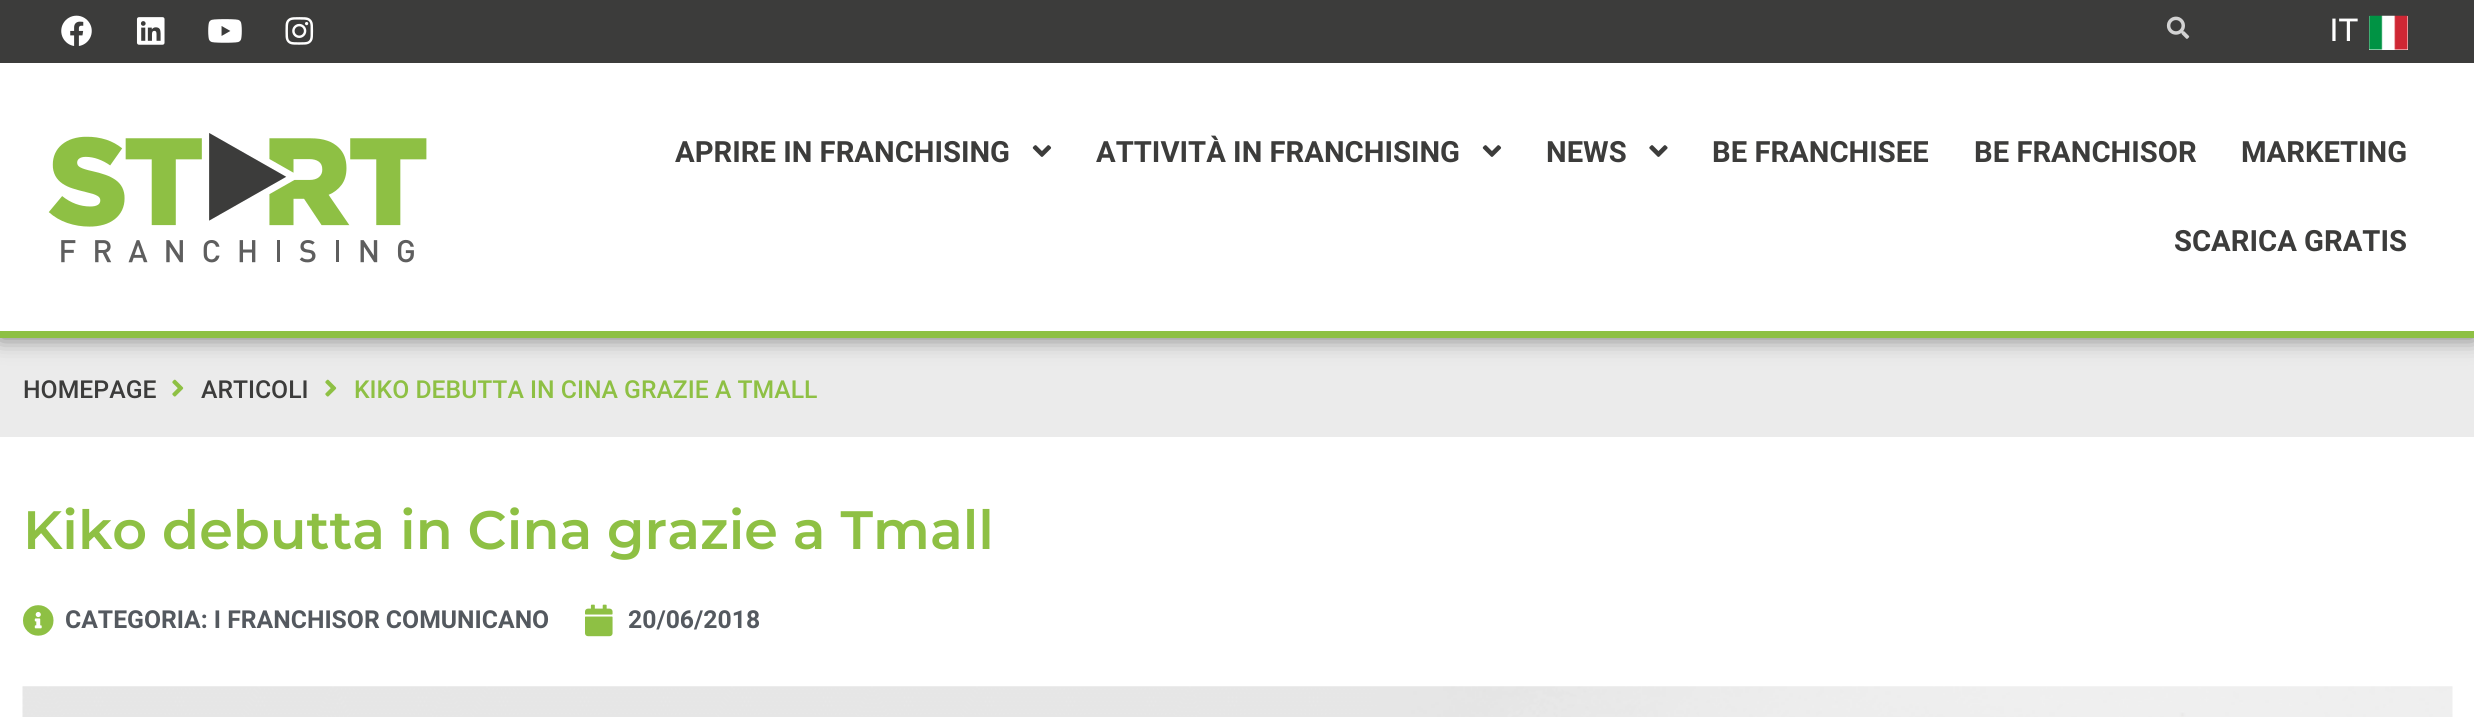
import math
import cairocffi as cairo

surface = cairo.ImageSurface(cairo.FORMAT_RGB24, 2474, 717)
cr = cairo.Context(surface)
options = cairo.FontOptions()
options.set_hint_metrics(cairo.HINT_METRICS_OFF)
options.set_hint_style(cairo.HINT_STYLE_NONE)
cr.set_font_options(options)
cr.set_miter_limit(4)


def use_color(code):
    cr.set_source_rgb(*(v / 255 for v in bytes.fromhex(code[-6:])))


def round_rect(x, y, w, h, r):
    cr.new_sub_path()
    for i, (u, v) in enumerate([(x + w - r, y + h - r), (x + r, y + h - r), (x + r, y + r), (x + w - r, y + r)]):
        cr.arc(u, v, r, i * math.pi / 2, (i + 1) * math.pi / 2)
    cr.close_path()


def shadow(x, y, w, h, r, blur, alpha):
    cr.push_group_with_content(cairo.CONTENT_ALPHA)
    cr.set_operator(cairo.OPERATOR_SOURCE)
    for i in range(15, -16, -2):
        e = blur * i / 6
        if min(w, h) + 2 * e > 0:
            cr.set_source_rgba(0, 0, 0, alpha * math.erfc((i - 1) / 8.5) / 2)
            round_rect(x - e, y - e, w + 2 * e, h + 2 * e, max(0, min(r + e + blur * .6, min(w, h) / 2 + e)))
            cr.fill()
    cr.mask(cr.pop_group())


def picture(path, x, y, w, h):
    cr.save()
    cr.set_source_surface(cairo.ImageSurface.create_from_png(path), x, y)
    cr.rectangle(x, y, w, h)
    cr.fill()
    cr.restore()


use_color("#ffffff")
cr.paint()
use_color("#ebebeb")
cr.rectangle(0, 338, 2474, 99)
cr.fill()
use_color("#000000")
shadow(0, 63, 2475, 275, 0, 11, 0.5)
use_color("#3c3c3b")
cr.rectangle(0, 0, 2474, 63)
cr.fill()
picture("img1.png", 61, 15, 31, 31)
picture("img2.png", 136, 17, 29, 28)
picture("img3.png", 208, 19, 34, 24)
picture("img4.png", 285, 17, 29, 28)
picture("img5.png", 2166, 16, 24, 23)
cr.select_font_face("Montserrat Medium")
cr.set_font_size(32)
use_color("#ffffff")
cr.move_to(2329, 41)
cr.show_text("IT")
cr.rectangle(2369, 16, 39, 34)
cr.fill()
picture("img6.png", 2369, 15, 39, 35)
cr.rectangle(0, 63, 2474, 268)
cr.fill()
use_color("#8ec044")
cr.rectangle(0, 331, 2474, 7)
cr.fill()
picture("img7.png", 48, 133, 379, 130)
cr.select_font_face("Roboto", cairo.FONT_SLANT_NORMAL, cairo.FONT_WEIGHT_BOLD)
cr.set_font_size(29.25)
use_color("#3c3c3b")
cr.move_to(675, 162)
cr.show_text("APRIRE IN FRANCHISING")
picture("img8.png", 1032, 145, 20, 12)
cr.move_to(1096, 162)
cr.show_text("ATTIVITÀ IN FRANCHISING")
picture("img8.png", 1482, 145, 20, 12)
cr.move_to(1546, 162)
cr.show_text("NEWS")
picture("img9.png", 1649, 145, 19, 12)
cr.move_to(1712, 162)
cr.show_text("BE FRANCHISEE")
cr.move_to(1974, 162)
cr.show_text("BE FRANCHISOR")
cr.move_to(2241, 162)
cr.show_text("MARKETING")
cr.move_to(2174, 251)
cr.show_text("SCARICA GRATIS")
cr.select_font_face("Roboto Medium")
cr.set_font_size(24.75)
cr.move_to(23, 398)
cr.show_text("HOMEPAGE")
picture("img10.png", 172, 379, 12, 18)
cr.move_to(201, 398)
cr.show_text("ARTICOLI")
picture("img10.png", 325, 379, 12, 18)
use_color("#8ec044")
cr.move_to(354, 398)
cr.show_text("KIKO DEBUTTA IN CINA GRAZIE A TMALL")
cr.select_font_face("Montserrat SemiBold")
cr.set_font_size(54)
cr.move_to(23, 549)
cr.show_text("Kiko debutta in Cina grazie a Tmall")
picture("img11.png", 23, 605, 31, 31)
cr.select_font_face("Roboto", cairo.FONT_SLANT_NORMAL, cairo.FONT_WEIGHT_BOLD)
cr.set_font_size(24.75)
use_color("#54595f")
cr.move_to(65, 628)
cr.show_text("CATEGORIA: I FRANCHISOR COMUNICANO")
picture("img12.png", 585, 604, 28, 33)
cr.move_to(628, 628)
cr.show_text("20/06/2018")
picture("img13.png", 22, 686, 2431, 31)
surface.write_to_png("result.png")
